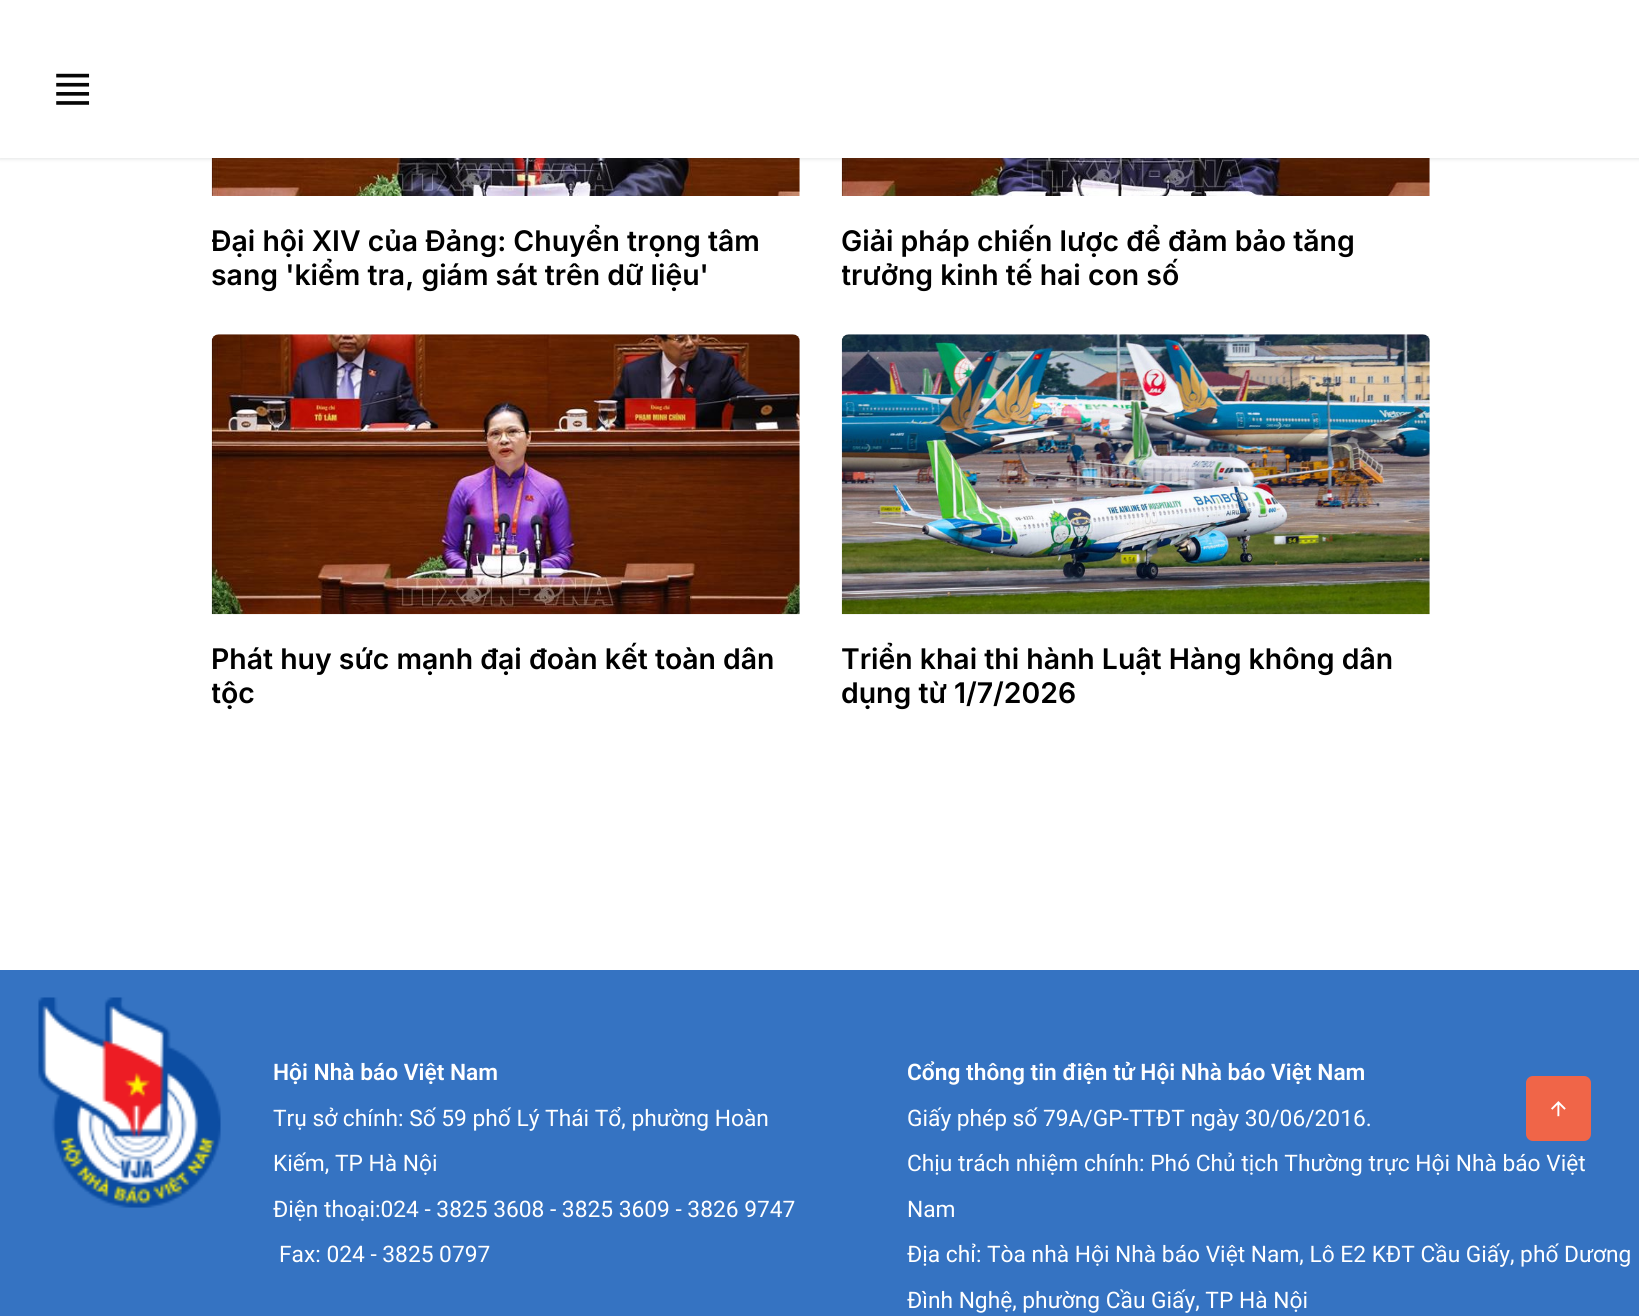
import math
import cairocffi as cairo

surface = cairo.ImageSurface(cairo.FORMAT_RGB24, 1639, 1316)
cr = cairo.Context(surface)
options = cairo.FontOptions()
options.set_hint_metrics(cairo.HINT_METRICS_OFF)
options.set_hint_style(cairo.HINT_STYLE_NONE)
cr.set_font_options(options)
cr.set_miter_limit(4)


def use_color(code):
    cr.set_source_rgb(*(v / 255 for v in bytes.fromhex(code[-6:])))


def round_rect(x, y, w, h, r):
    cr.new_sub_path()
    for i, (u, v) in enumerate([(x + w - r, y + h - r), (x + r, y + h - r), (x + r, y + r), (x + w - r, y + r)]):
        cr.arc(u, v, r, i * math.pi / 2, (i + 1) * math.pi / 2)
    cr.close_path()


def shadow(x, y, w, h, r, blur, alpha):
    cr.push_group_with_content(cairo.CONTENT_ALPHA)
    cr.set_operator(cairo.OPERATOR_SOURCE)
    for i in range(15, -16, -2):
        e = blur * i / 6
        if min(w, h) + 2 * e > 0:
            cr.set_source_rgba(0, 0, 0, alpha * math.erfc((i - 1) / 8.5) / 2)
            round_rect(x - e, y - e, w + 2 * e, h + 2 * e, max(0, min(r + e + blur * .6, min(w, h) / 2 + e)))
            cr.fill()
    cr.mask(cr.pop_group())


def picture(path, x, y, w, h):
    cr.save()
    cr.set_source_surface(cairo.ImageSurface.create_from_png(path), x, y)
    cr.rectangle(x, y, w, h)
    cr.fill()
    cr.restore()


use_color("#ffffff")
cr.paint()
picture("img2.png", 211, 158, 589, 38)
picture("img3.png", 841, 158, 589, 38)
use_color("#38414a")
shadow(0, 2, 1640, 157, 0, 2, 0.15)
use_color("#ffffff")
cr.rectangle(0, 0, 1639, 158)
cr.fill()
picture("img1.png", 56, 73, 34, 32)
cr.save()
cr.rectangle(212, 224, 588, 68)
cr.clip()
cr.select_font_face("Inter SemiBold")
cr.set_font_size(28.4)
use_color("#000000")
cr.move_to(211, 251)
cr.show_text("Đại hội XIV của Đảng: Chuyển trọng tâm")
cr.restore()
cr.select_font_face("Inter SemiBold")
cr.set_font_size(28.4)
use_color("#000000")
cr.move_to(211, 285)
cr.show_text("sang 'kiểm tra, giám sát trên dữ liệu'")
cr.move_to(841, 251)
cr.show_text("Giải pháp chiến lược để đảm bảo tăng")
cr.save()
cr.rectangle(842, 224, 588, 68)
cr.clip()
cr.move_to(841, 285)
cr.show_text("trưởng kinh tế hai con số")
cr.restore()
picture("img4.png", 211, 334, 589, 281)
cr.move_to(211, 669)
cr.show_text("Phát huy sức mạnh đại đoàn kết toàn dân")
cr.save()
cr.rectangle(212, 642, 588, 69)
cr.clip()
cr.move_to(211, 703)
cr.show_text("tộc")
cr.restore()
picture("img5.png", 841, 334, 589, 281)
cr.move_to(841, 669)
cr.show_text("Triển khai thi hành Luật Hàng không dân")
cr.move_to(841, 703)
cr.show_text("dụng từ 1/7/2026")
use_color("#3573c2")
cr.rectangle(0, 970, 1639, 346)
cr.fill()
picture("img6.png", 38, 997, 183, 211)
cr.select_font_face("Roboto SemiBold")
cr.set_font_size(22.75)
use_color("#ffffff")
cr.move_to(273, 1080)
cr.show_text("Hội Nhà báo Việt Nam")
cr.select_font_face("Roboto")
cr.move_to(273, 1126)
cr.show_text("Trụ sở chính: Số 59 phố Lý Thái Tổ, phường Hoàn")
cr.move_to(273, 1171)
cr.show_text("Kiếm, TP Hà Nội")
cr.move_to(273, 1217)
cr.show_text("Điện thoại:024 - 3825 3608 - 3825 3609 - 3826 9747")
cr.move_to(279, 1262)
cr.show_text("Fax: 024 - 3825 0797")
cr.select_font_face("Roboto SemiBold")
cr.move_to(907, 1080)
cr.show_text("Cổng thông tin điện tử Hội Nhà báo Việt Nam")
cr.select_font_face("Roboto")
cr.move_to(907, 1126)
cr.show_text("Giấy phép số 79A/GP-TTĐT ngày 30/06/2016.")
cr.move_to(907, 1171)
cr.show_text("Chịu trách nhiệm chính: Phó Chủ tịch Thường trực Hội Nhà báo Việt")
cr.move_to(907, 1217)
cr.show_text("Nam")
cr.move_to(907, 1262)
cr.show_text("Địa chỉ: Tòa nhà Hội Nhà báo Việt Nam, Lô E2 KĐT Cầu Giấy, phố Dương")
cr.move_to(907, 1308)
cr.show_text("Đình Nghệ, phường Cầu Giấy, TP Hà Nội")
use_color("#f06548")
round_rect(1527, 1077, 63, 63, 6)
cr.fill_preserve()
cr.stroke()
picture("img7.png", 1551, 1101, 15, 16)
surface.write_to_png("result.png")
